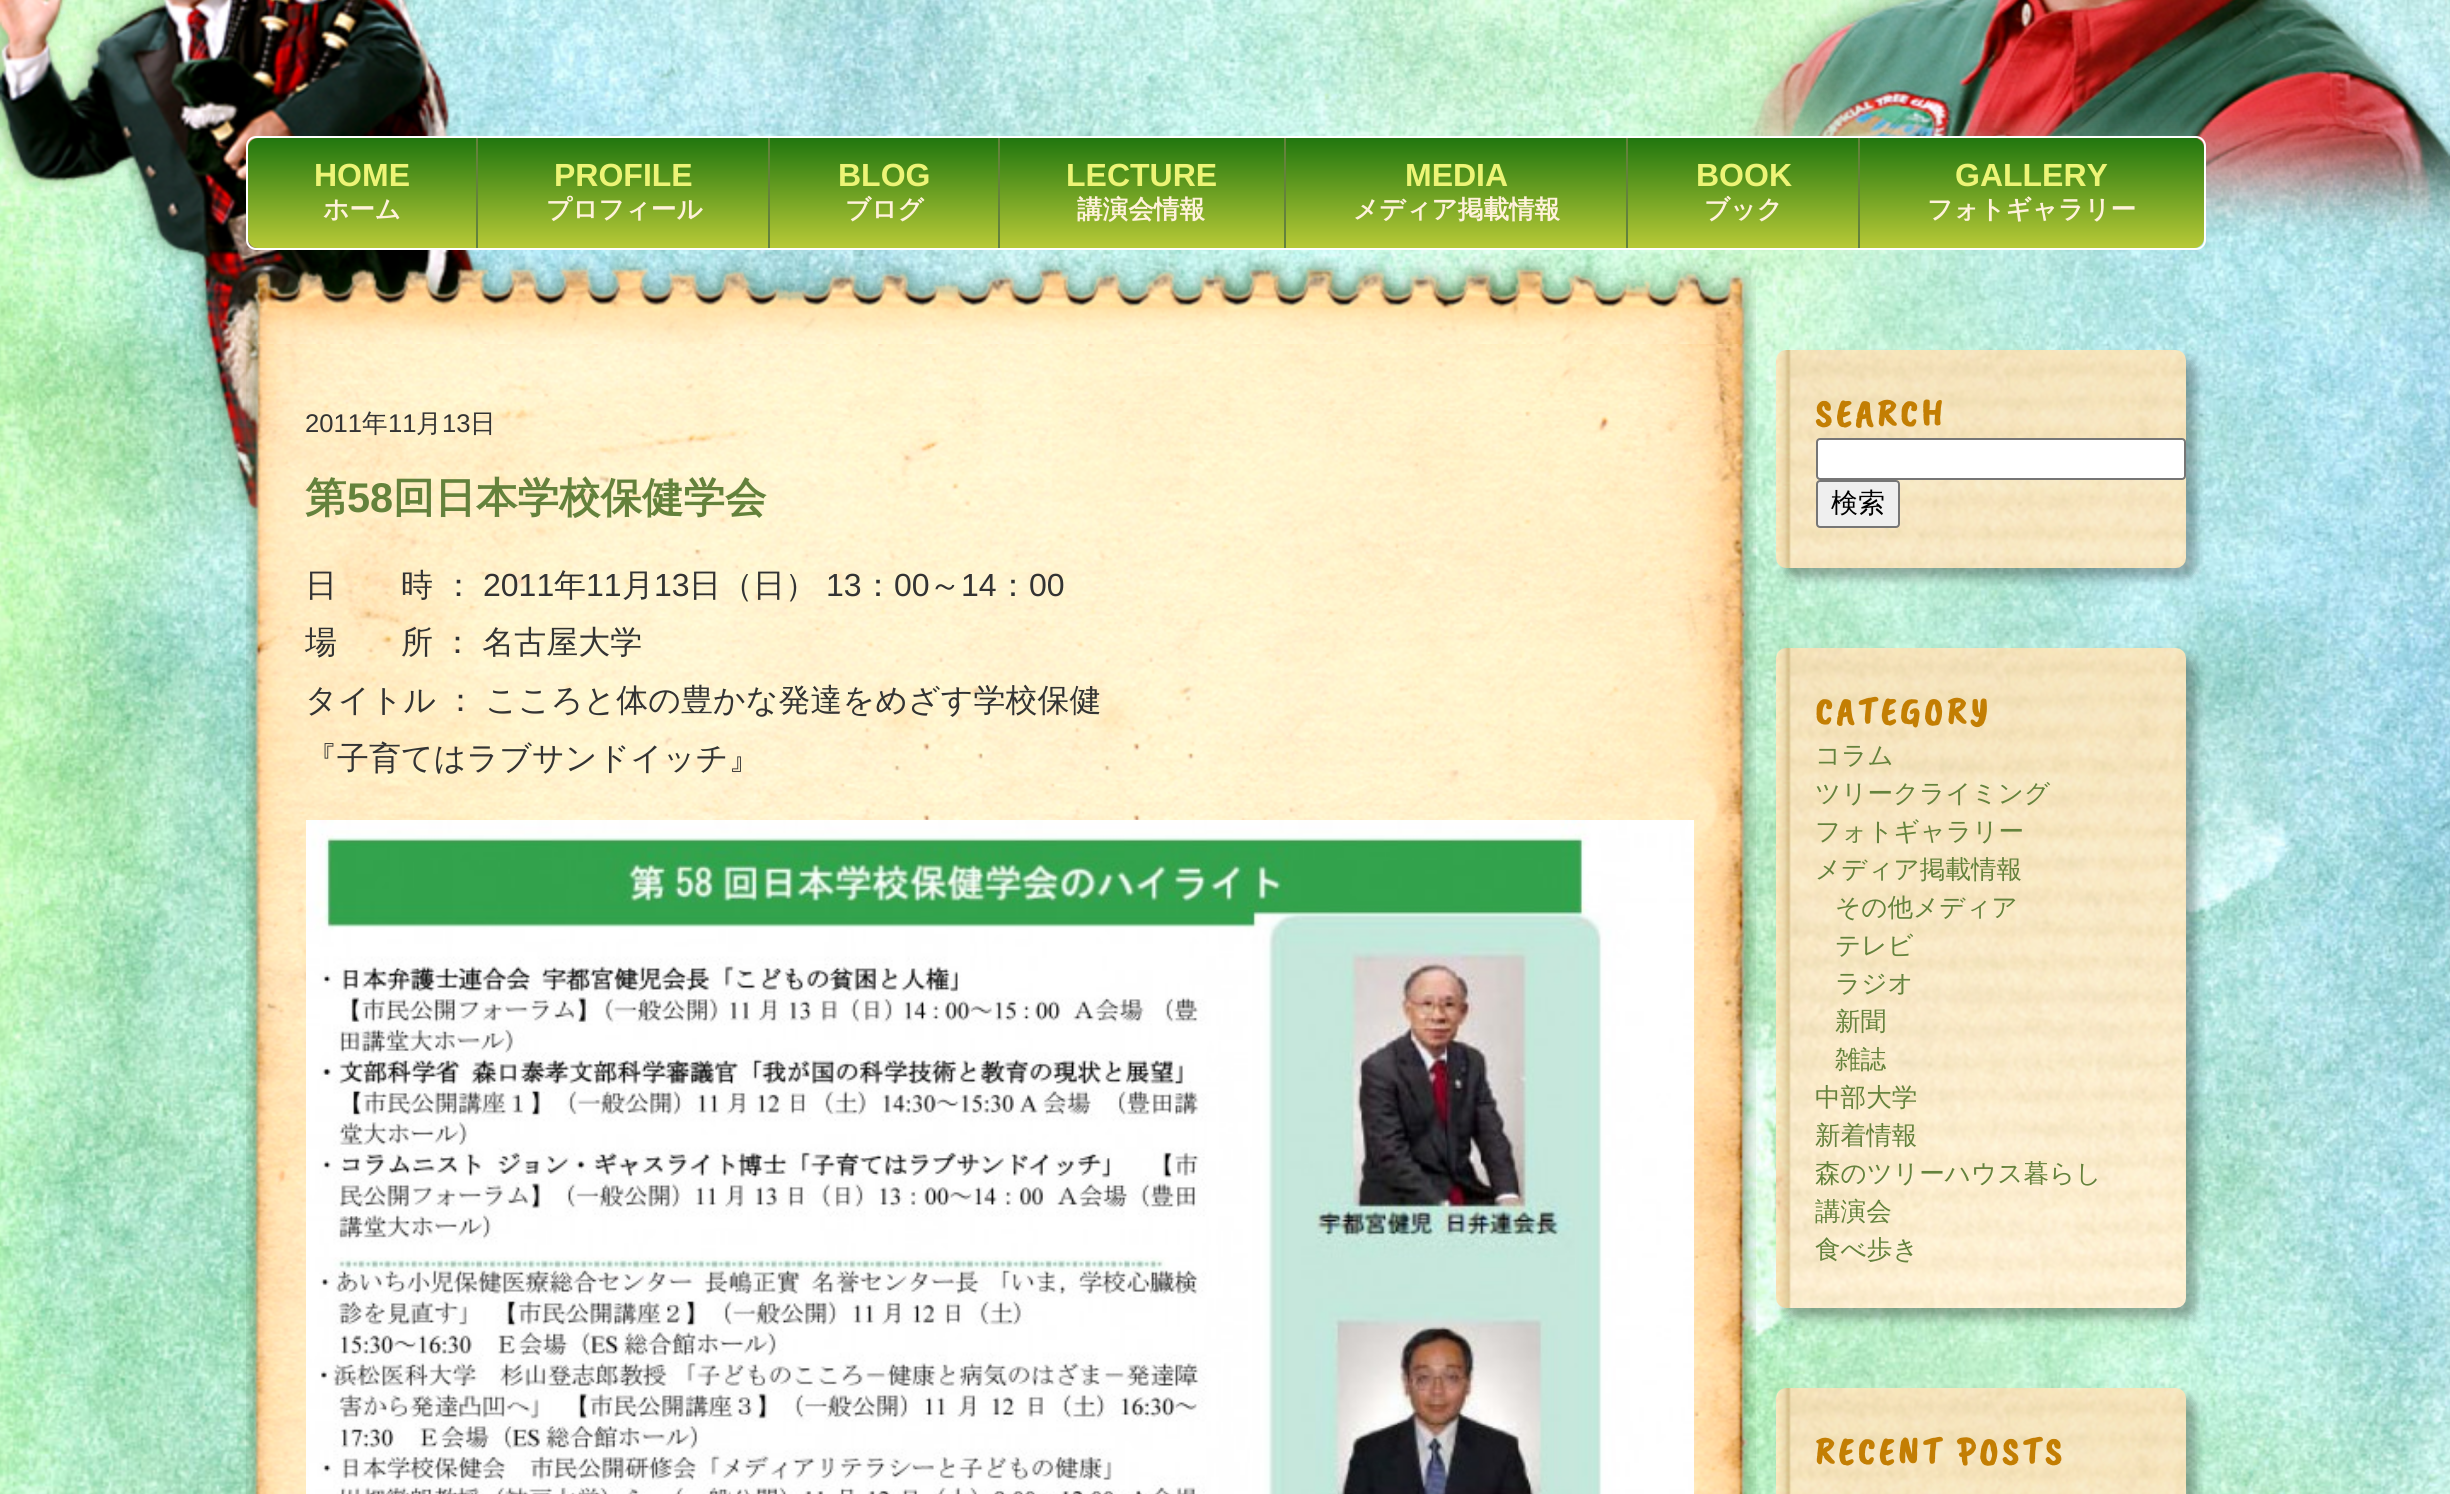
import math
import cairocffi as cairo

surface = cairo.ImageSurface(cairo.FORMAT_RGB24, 2450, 1494)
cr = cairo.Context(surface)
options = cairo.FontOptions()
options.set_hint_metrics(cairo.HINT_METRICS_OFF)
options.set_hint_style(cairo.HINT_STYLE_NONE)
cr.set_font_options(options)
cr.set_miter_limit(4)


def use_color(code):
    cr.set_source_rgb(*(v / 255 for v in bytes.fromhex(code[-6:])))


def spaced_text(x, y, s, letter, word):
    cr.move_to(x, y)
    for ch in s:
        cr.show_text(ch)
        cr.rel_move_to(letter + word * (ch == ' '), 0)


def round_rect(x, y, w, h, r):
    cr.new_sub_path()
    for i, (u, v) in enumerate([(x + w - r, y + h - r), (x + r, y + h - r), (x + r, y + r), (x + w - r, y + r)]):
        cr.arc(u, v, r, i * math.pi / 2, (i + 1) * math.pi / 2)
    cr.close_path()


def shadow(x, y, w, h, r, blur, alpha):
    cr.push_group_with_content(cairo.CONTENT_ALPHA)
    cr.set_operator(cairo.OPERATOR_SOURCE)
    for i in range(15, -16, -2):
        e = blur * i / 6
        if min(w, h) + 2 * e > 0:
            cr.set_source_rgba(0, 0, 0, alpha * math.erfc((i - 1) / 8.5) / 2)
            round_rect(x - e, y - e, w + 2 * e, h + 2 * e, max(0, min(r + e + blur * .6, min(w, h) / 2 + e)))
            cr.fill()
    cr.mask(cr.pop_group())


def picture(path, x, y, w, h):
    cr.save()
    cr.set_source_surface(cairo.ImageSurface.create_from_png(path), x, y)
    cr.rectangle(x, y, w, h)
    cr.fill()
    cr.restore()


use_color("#ffffff")
cr.paint()
picture("img1.png", 0, 0, 2450, 1494)
picture("img2.png", 0, 0, 2450, 516)
round_rect(247, 137, 1958, 112, 9)
use_color("#ffffff")
cr.stroke()
gradient = cairo.LinearGradient(362, 138, 362, 248)
gradient.add_color_stop_rgba(0.01, 0.133, 0.467, 0.059, 1)
gradient.add_color_stop_rgba(0.98, 0.71, 0.784, 0.212, 1)
cr.set_source(gradient)
cr.new_path()
cr.move_to(258, 138)
cr.line_to(476, 138)
cr.line_to(476, 248)
cr.line_to(258, 248)
cr.curve_to(252.5, 248, 248, 243.5, 248, 238)
cr.line_to(248, 148)
cr.curve_to(248, 142.5, 252.5, 138, 258, 138)
cr.close_path()
cr.fill()
cr.select_font_face("Liberation Sans", cairo.FONT_SLANT_NORMAL, cairo.FONT_WEIGHT_BOLD)
cr.set_font_size(32)
use_color("#edf476")
cr.move_to(314, 186)
cr.show_text("HOME")
cr.select_font_face("WenQuanYi Zen Hei", cairo.FONT_SLANT_NORMAL, cairo.FONT_WEIGHT_BOLD)
cr.set_font_size(25.6)
use_color("#fff2db")
cr.move_to(323, 218)
cr.show_text("ホーム")
use_color("#64823c")
cr.rectangle(476, 138, 2, 110)
cr.fill()
gradient = cairo.LinearGradient(623, 138, 623, 248)
gradient.add_color_stop_rgba(0.01, 0.133, 0.467, 0.059, 1)
gradient.add_color_stop_rgba(0.98, 0.71, 0.784, 0.212, 1)
cr.set_source(gradient)
cr.rectangle(478, 138, 290, 110)
cr.fill()
cr.select_font_face("Liberation Sans", cairo.FONT_SLANT_NORMAL, cairo.FONT_WEIGHT_BOLD)
cr.set_font_size(32)
use_color("#edf476")
cr.move_to(554, 186)
cr.show_text("PROFILE")
cr.select_font_face("WenQuanYi Zen Hei", cairo.FONT_SLANT_NORMAL, cairo.FONT_WEIGHT_BOLD)
cr.set_font_size(25.6)
use_color("#fff2db")
cr.move_to(546, 218)
cr.show_text("プロフィール")
use_color("#64823c")
cr.rectangle(768, 138, 2, 110)
cr.fill()
gradient = cairo.LinearGradient(884, 138, 884, 248)
gradient.add_color_stop_rgba(0.01, 0.133, 0.467, 0.059, 1)
gradient.add_color_stop_rgba(0.98, 0.71, 0.784, 0.212, 1)
cr.set_source(gradient)
cr.rectangle(770, 138, 228, 110)
cr.fill()
cr.select_font_face("Liberation Sans", cairo.FONT_SLANT_NORMAL, cairo.FONT_WEIGHT_BOLD)
cr.set_font_size(32)
use_color("#edf476")
cr.move_to(838, 186)
cr.show_text("BLOG")
cr.select_font_face("WenQuanYi Zen Hei", cairo.FONT_SLANT_NORMAL, cairo.FONT_WEIGHT_BOLD)
cr.set_font_size(25.6)
use_color("#fff2db")
cr.move_to(845, 218)
cr.show_text("ブログ")
use_color("#64823c")
cr.rectangle(998, 138, 2, 110)
cr.fill()
gradient = cairo.LinearGradient(1142, 138, 1142, 248)
gradient.add_color_stop_rgba(0.01, 0.133, 0.467, 0.059, 1)
gradient.add_color_stop_rgba(0.98, 0.71, 0.784, 0.212, 1)
cr.set_source(gradient)
cr.rectangle(1000, 138, 284, 110)
cr.fill()
cr.select_font_face("Liberation Sans", cairo.FONT_SLANT_NORMAL, cairo.FONT_WEIGHT_BOLD)
cr.set_font_size(32)
use_color("#edf476")
cr.move_to(1066, 186)
cr.show_text("LECTURE")
cr.select_font_face("WenQuanYi Zen Hei", cairo.FONT_SLANT_NORMAL, cairo.FONT_WEIGHT_BOLD)
cr.set_font_size(25.6)
use_color("#fff2db")
cr.move_to(1077, 218)
cr.show_text("講演会情報")
use_color("#64823c")
cr.rectangle(1284, 138, 2, 110)
cr.fill()
gradient = cairo.LinearGradient(1456, 138, 1456, 248)
gradient.add_color_stop_rgba(0.01, 0.133, 0.467, 0.059, 1)
gradient.add_color_stop_rgba(0.98, 0.71, 0.784, 0.212, 1)
cr.set_source(gradient)
cr.rectangle(1286, 138, 340, 110)
cr.fill()
cr.select_font_face("Liberation Sans", cairo.FONT_SLANT_NORMAL, cairo.FONT_WEIGHT_BOLD)
cr.set_font_size(32)
use_color("#edf476")
cr.move_to(1405, 186)
cr.show_text("MEDIA")
cr.select_font_face("WenQuanYi Zen Hei", cairo.FONT_SLANT_NORMAL, cairo.FONT_WEIGHT_BOLD)
cr.set_font_size(25.6)
use_color("#fff2db")
cr.move_to(1353, 218)
cr.show_text("メディア掲載情報")
use_color("#64823c")
cr.rectangle(1626, 138, 2, 110)
cr.fill()
gradient = cairo.LinearGradient(1743, 138, 1743, 248)
gradient.add_color_stop_rgba(0.01, 0.133, 0.467, 0.059, 1)
gradient.add_color_stop_rgba(0.98, 0.71, 0.784, 0.212, 1)
cr.set_source(gradient)
cr.rectangle(1628, 138, 230, 110)
cr.fill()
cr.select_font_face("Liberation Sans", cairo.FONT_SLANT_NORMAL, cairo.FONT_WEIGHT_BOLD)
cr.set_font_size(32)
use_color("#edf476")
cr.move_to(1696, 186)
cr.show_text("BOOK")
cr.select_font_face("WenQuanYi Zen Hei", cairo.FONT_SLANT_NORMAL, cairo.FONT_WEIGHT_BOLD)
cr.set_font_size(25.6)
use_color("#fff2db")
cr.move_to(1704, 218)
cr.show_text("ブック")
use_color("#64823c")
cr.rectangle(1858, 138, 2, 110)
cr.fill()
gradient = cairo.LinearGradient(2032, 138, 2032, 248)
gradient.add_color_stop_rgba(0.01, 0.133, 0.467, 0.059, 1)
gradient.add_color_stop_rgba(0.98, 0.71, 0.784, 0.212, 1)
cr.set_source(gradient)
cr.new_path()
cr.move_to(1860, 138)
cr.line_to(2194, 138)
cr.curve_to(2199.5, 138, 2204, 142.5, 2204, 148)
cr.line_to(2204, 238)
cr.curve_to(2204, 243.5, 2199.5, 248, 2194, 248)
cr.line_to(1860, 248)
cr.close_path()
cr.fill()
cr.select_font_face("Liberation Sans", cairo.FONT_SLANT_NORMAL, cairo.FONT_WEIGHT_BOLD)
cr.set_font_size(32)
use_color("#edf476")
cr.move_to(1955, 186)
cr.show_text("GALLERY")
cr.select_font_face("WenQuanYi Zen Hei", cairo.FONT_SLANT_NORMAL, cairo.FONT_WEIGHT_BOLD)
cr.set_font_size(25.6)
use_color("#fff2db")
cr.move_to(1927, 218)
cr.show_text("フォトギャラリー")
picture("img3.png", 246, 256, 1510, 88)
picture("img4.png", 246, 344, 1510, 1150)
cr.select_font_face("Liberation Sans")
use_color("#333333")
cr.move_to(305, 432)
cr.show_text("2011")
cr.select_font_face("WenQuanYi Zen Hei Medium")
cr.move_to(362, 432)
cr.show_text("年")
cr.select_font_face("Liberation Sans")
cr.move_to(388, 432)
cr.show_text("11")
cr.select_font_face("WenQuanYi Zen Hei Medium")
cr.move_to(416, 432)
cr.show_text("月")
cr.select_font_face("Liberation Sans")
cr.move_to(442, 432)
cr.show_text("13")
cr.select_font_face("WenQuanYi Zen Hei Medium")
cr.move_to(470, 432)
cr.show_text("日")
cr.select_font_face("WenQuanYi Zen Hei", cairo.FONT_SLANT_NORMAL, cairo.FONT_WEIGHT_BOLD)
cr.set_font_size(41.5)
use_color("#64823c")
cr.move_to(305, 512)
cr.show_text("第")
cr.select_font_face("Liberation Sans", cairo.FONT_SLANT_NORMAL, cairo.FONT_WEIGHT_BOLD)
cr.move_to(347, 512)
cr.show_text("58")
cr.select_font_face("WenQuanYi Zen Hei", cairo.FONT_SLANT_NORMAL, cairo.FONT_WEIGHT_BOLD)
cr.move_to(393, 512)
cr.show_text("回日本学校保健学会")
cr.select_font_face("WenQuanYi Zen Hei Medium")
cr.set_font_size(32)
use_color("#333333")
cr.move_to(305, 596)
cr.show_text("日　　時 ：")
cr.select_font_face("Liberation Sans")
cr.move_to(483, 596)
cr.show_text("2011")
cr.select_font_face("WenQuanYi Zen Hei Medium")
cr.move_to(554, 596)
cr.show_text("年")
cr.select_font_face("Liberation Sans")
cr.move_to(586, 596)
cr.show_text("11")
cr.select_font_face("WenQuanYi Zen Hei Medium")
cr.move_to(622, 596)
cr.show_text("月")
cr.select_font_face("Liberation Sans")
cr.move_to(654, 596)
cr.show_text("13")
cr.select_font_face("WenQuanYi Zen Hei Medium")
cr.move_to(689, 596)
cr.show_text("日（日）")
cr.select_font_face("Liberation Sans")
cr.move_to(826, 596)
cr.show_text("13")
cr.select_font_face("WenQuanYi Zen Hei Medium")
cr.move_to(862, 596)
cr.show_text("：")
cr.select_font_face("Liberation Sans")
cr.move_to(894, 596)
cr.show_text("00")
cr.select_font_face("WenQuanYi Zen Hei Medium")
cr.move_to(929, 596)
cr.show_text("～")
cr.select_font_face("Liberation Sans")
cr.move_to(961, 596)
cr.show_text("14")
cr.select_font_face("WenQuanYi Zen Hei Medium")
cr.move_to(997, 596)
cr.show_text("：")
cr.select_font_face("Liberation Sans")
cr.move_to(1029, 596)
cr.show_text("00")
cr.select_font_face("WenQuanYi Zen Hei Medium")
spaced_text(305, 653, "場　　所 ： 名古屋大学", 0, -1)
spaced_text(305, 711, "タイトル ： こころと体の豊かな発達をめざす学校保健", 0, -1)
cr.move_to(305, 769)
cr.show_text("『子育てはラブサンドイッチ』")
picture("img5.png", 306, 820, 1388, 674)
use_color("#000000")
shadow(1786, 360, 410, 218, 10, 5, 0.3)
picture("img6.png", 1776, 350, 410, 218)
cr.select_font_face("Caveat Brush", cairo.FONT_SLANT_NORMAL, cairo.FONT_WEIGHT_BOLD)
cr.set_font_size(38.5)
use_color("#c37e03")
spaced_text(1815, 426, "SEARCH", 4, 0)
use_color("#ffffff")
round_rect(1817, 439, 368, 40, 3)
cr.fill_preserve()
use_color("#767676")
cr.stroke()
use_color("#efefef")
round_rect(1817, 481, 82, 46, 3)
cr.fill_preserve()
use_color("#767676")
cr.stroke()
cr.select_font_face("WenQuanYi Zen Hei Medium")
cr.set_font_size(27)
use_color("#000000")
cr.move_to(1831, 512)
cr.show_text("検索")
use_color("#000000")
shadow(1786, 658, 410, 660, 10, 5, 0.3)
picture("img7.png", 1776, 648, 410, 660)
cr.select_font_face("Caveat Brush", cairo.FONT_SLANT_NORMAL, cairo.FONT_WEIGHT_BOLD)
cr.set_font_size(38.5)
use_color("#c37e03")
spaced_text(1815, 724, "CATEGORY", 4, 0)
cr.select_font_face("WenQuanYi Zen Hei Medium")
cr.set_font_size(25.6)
use_color("#64823c")
cr.move_to(1815, 764)
cr.show_text("コラム")
cr.move_to(1815, 802)
cr.show_text("ツリークライミング")
cr.move_to(1815, 840)
cr.show_text("フォトギャラリー")
cr.move_to(1815, 878)
cr.show_text("メディア掲載情報")
cr.move_to(1835, 916)
cr.show_text("その他メディア")
cr.move_to(1835, 954)
cr.show_text("テレビ")
cr.move_to(1835, 992)
cr.show_text("ラジオ")
cr.move_to(1835, 1030)
cr.show_text("新聞")
cr.move_to(1835, 1068)
cr.show_text("雑誌")
cr.move_to(1815, 1106)
cr.show_text("中部大学")
cr.move_to(1815, 1144)
cr.show_text("新着情報")
cr.move_to(1815, 1182)
cr.show_text("森のツリーハウス暮らし")
cr.move_to(1815, 1220)
cr.show_text("講演会")
cr.move_to(1815, 1258)
cr.show_text("食べ歩き")
use_color("#000000")
shadow(1786, 1398, 410, 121, 10, 5, 0.3)
picture("img8.png", 1776, 1388, 410, 106)
cr.select_font_face("Caveat Brush", cairo.FONT_SLANT_NORMAL, cairo.FONT_WEIGHT_BOLD)
cr.set_font_size(38.5)
use_color("#c37e03")
spaced_text(1815, 1464, "RECENT POSTS", 4, 0)
surface.write_to_png("result.png")
